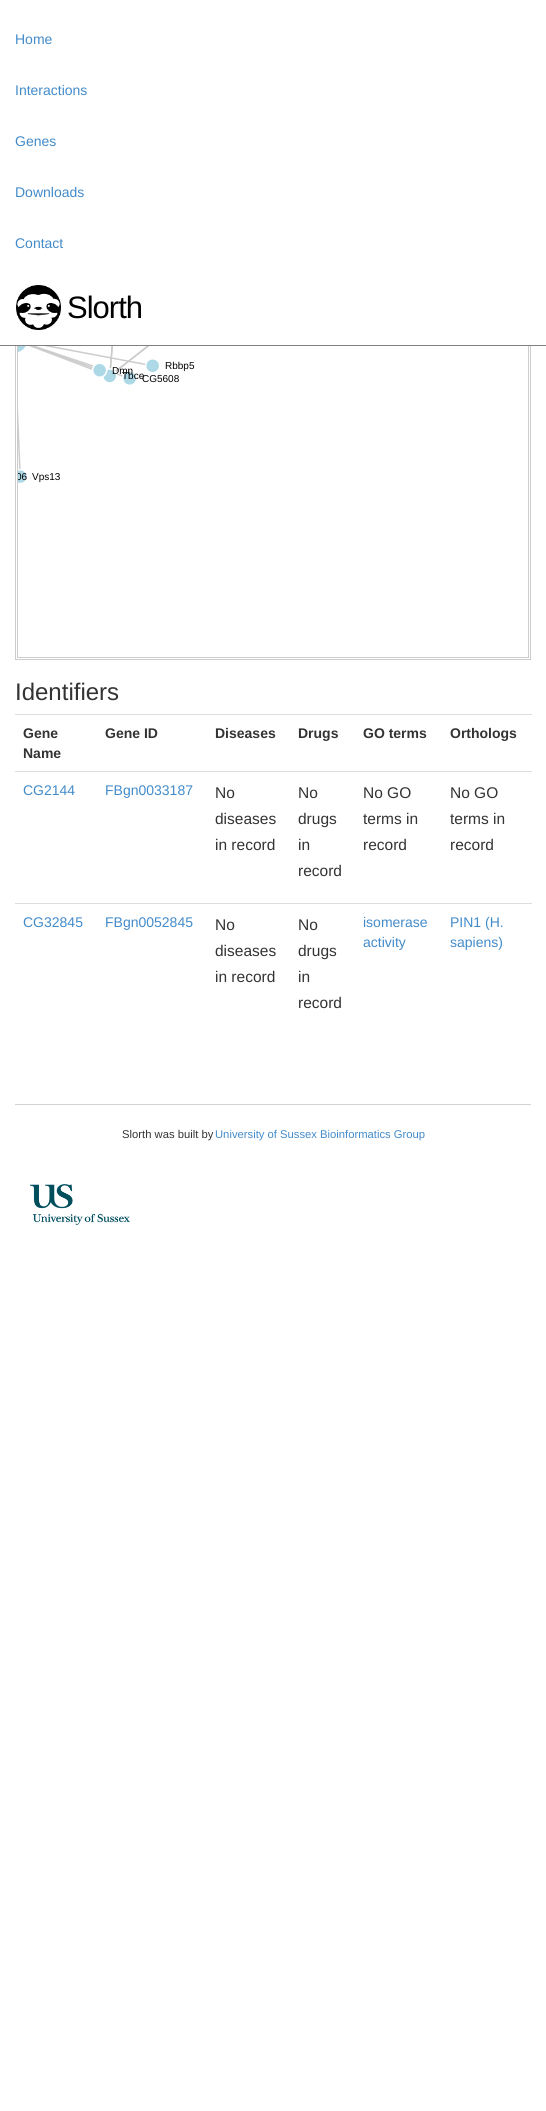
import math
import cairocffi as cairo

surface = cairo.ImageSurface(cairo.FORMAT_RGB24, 546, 2111)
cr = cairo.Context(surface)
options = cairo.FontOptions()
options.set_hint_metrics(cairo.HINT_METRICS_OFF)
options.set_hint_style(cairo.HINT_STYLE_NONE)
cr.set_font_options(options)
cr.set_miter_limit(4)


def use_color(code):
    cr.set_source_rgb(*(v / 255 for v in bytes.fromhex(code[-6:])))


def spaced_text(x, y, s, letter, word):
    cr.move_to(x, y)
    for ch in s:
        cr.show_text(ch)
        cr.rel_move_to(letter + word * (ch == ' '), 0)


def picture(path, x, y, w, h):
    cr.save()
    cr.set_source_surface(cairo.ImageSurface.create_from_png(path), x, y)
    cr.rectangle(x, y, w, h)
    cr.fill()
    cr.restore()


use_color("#ffffff")
cr.paint()
cr.rectangle(15.5, 249.5, 515, 410)
use_color("#cccccc")
cr.set_line_width(1)
cr.stroke()
cr.rectangle(17.5, 251.5, 511, 406)
cr.stroke()
use_color("#ffffff")
cr.rectangle(15, 249, 516, 96)
cr.fill()
use_color("#808080")
cr.rectangle(0, 345, 546, 1)
cr.fill()
cr.select_font_face("Liberation Sans")
cr.set_font_size(14)
use_color("#428bca")
cr.move_to(15, 44)
cr.show_text("Home")
cr.move_to(15, 95)
cr.show_text("Interactions")
cr.move_to(15, 146)
cr.show_text("Genes")
cr.move_to(15, 197)
cr.show_text("Downloads")
cr.move_to(15, 248)
cr.show_text("Contact")
picture("img1.png", 16, 285, 45, 45)
cr.set_font_size(31)
use_color("#000000")
spaced_text(67, 318, "Slorth", -1, 0)
picture("img2.png", 18, 346, 143, 137)
cr.set_font_size(10)
cr.move_to(165, 369)
cr.show_text("Rbbp5")
cr.move_to(122, 379)
cr.show_text("Tbce")
cr.move_to(112, 374)
cr.show_text("Dmn")
cr.move_to(142, 382)
cr.show_text("CG5608")
cr.save()
cr.rectangle(18, 252, 407, 400)
cr.clip()
cr.move_to(16, 480)
cr.show_text("06")
cr.restore()
cr.move_to(32, 480)
cr.show_text("Vps13")
cr.set_font_size(24)
use_color("#333333")
cr.move_to(15, 700)
cr.show_text("Identifiers")
cr.select_font_face("Liberation Sans", cairo.FONT_SLANT_NORMAL, cairo.FONT_WEIGHT_BOLD)
cr.set_font_size(14)
cr.move_to(23, 738)
cr.show_text("Gene")
cr.move_to(23, 758)
cr.show_text("Name")
cr.move_to(105, 738)
cr.show_text("Gene ID")
cr.move_to(215, 738)
cr.show_text("Diseases")
cr.move_to(298, 738)
cr.show_text("Drugs")
cr.move_to(363, 738)
cr.show_text("GO terms")
use_color("#dddddd")
cr.rectangle(15, 714, 517, 1)
cr.fill()
use_color("#333333")
cr.move_to(450, 738)
cr.show_text("Orthologs")
cr.select_font_face("Liberation Sans")
use_color("#428bca")
cr.move_to(23, 795)
cr.show_text("CG2144")
cr.move_to(105, 795)
cr.show_text("FBgn0033187")
cr.set_font_size(15.5)
use_color("#333333")
cr.move_to(215, 798)
cr.show_text("No")
cr.move_to(215, 824)
cr.show_text("diseases")
cr.move_to(215, 850)
cr.show_text("in record")
cr.move_to(298, 798)
cr.show_text("No")
cr.move_to(298, 824)
cr.show_text("drugs")
cr.move_to(298, 850)
cr.show_text("in")
cr.move_to(298, 876)
cr.show_text("record")
cr.move_to(363, 798)
cr.show_text("No GO")
cr.move_to(363, 824)
cr.show_text("terms in")
cr.move_to(363, 850)
cr.show_text("record")
use_color("#dddddd")
cr.rectangle(15, 771, 517, 1)
cr.fill()
use_color("#333333")
cr.move_to(450, 798)
cr.show_text("No GO")
cr.move_to(450, 824)
cr.show_text("terms in")
cr.move_to(450, 850)
cr.show_text("record")
cr.set_font_size(14)
use_color("#428bca")
cr.move_to(23, 927)
cr.show_text("CG32845")
cr.move_to(105, 927)
cr.show_text("FBgn0052845")
cr.set_font_size(15.5)
use_color("#333333")
cr.move_to(215, 930)
cr.show_text("No")
cr.move_to(215, 956)
cr.show_text("diseases")
cr.move_to(215, 982)
cr.show_text("in record")
cr.move_to(298, 930)
cr.show_text("No")
cr.move_to(298, 956)
cr.show_text("drugs")
cr.move_to(298, 982)
cr.show_text("in")
cr.move_to(298, 1008)
cr.show_text("record")
cr.set_font_size(14)
use_color("#428bca")
cr.move_to(363, 927)
cr.show_text("isomerase")
cr.move_to(363, 947)
cr.show_text("activity")
use_color("#dddddd")
cr.rectangle(15, 903, 517, 1)
cr.fill()
use_color("#428bca")
cr.move_to(450, 927)
cr.show_text("PIN1 (H.")
cr.move_to(450, 947)
cr.show_text("sapiens)")
use_color("#d3d3d3")
cr.rectangle(15, 1104, 516, 1)
cr.fill()
cr.set_font_size(11.25)
use_color("#333333")
cr.move_to(122, 1138)
cr.show_text("Slorth was built by")
use_color("#428bca")
cr.move_to(215, 1138)
cr.show_text("University of Sussex Bioinformatics Group")
picture("img3.png", 30, 1184, 100, 41)
surface.write_to_png("result.png")
